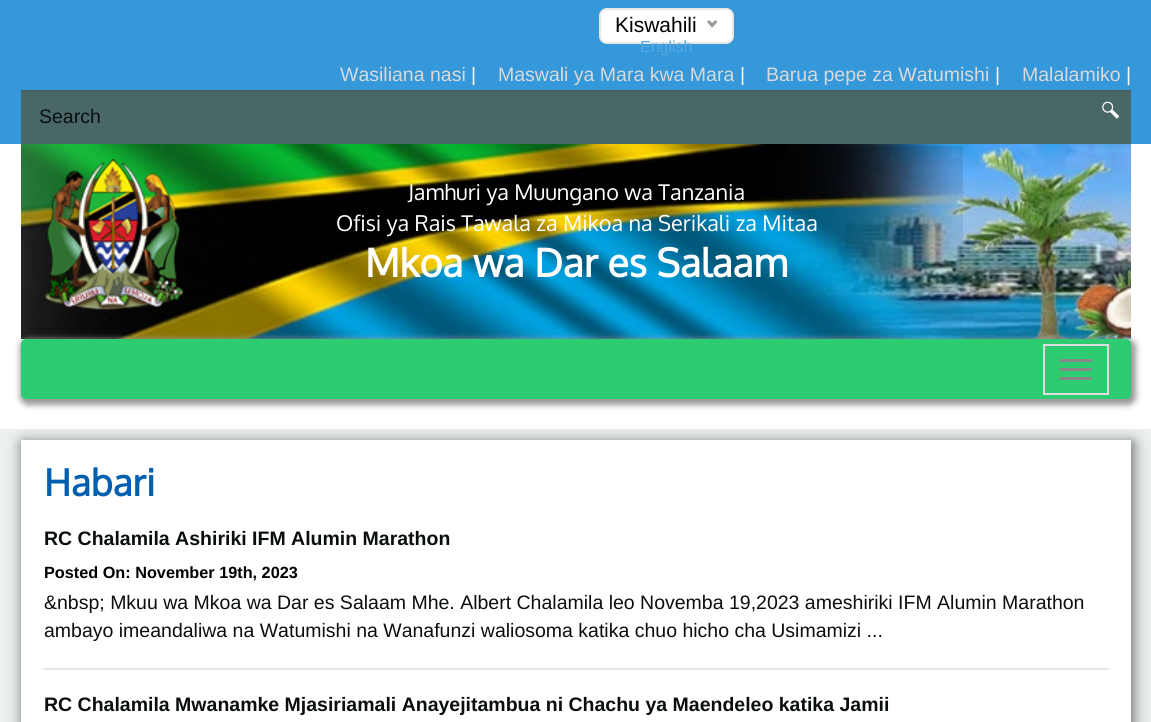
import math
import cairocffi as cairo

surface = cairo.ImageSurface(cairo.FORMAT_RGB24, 1151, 722)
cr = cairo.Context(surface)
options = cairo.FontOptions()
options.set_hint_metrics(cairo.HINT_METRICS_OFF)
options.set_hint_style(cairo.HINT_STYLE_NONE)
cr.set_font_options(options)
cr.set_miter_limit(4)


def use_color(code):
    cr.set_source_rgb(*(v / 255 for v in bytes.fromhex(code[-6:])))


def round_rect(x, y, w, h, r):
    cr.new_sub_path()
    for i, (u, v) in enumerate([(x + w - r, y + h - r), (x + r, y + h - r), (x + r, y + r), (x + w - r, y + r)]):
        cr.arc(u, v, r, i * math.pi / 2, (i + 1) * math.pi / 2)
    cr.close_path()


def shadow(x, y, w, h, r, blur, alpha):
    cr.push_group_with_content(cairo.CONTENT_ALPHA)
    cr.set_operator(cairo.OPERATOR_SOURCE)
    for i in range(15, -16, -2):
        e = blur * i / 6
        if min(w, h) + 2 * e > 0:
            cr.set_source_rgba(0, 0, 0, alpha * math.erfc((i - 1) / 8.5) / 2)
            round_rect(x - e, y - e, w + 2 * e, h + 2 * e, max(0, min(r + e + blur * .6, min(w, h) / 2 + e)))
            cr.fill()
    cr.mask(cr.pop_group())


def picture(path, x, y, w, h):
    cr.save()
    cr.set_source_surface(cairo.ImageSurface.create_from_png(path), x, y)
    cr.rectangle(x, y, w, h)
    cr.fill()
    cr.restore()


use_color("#ecf0f1")
cr.paint()
use_color("#3498db")
cr.rectangle(0, 0, 1151, 144)
cr.fill()
use_color("#ffffff")
round_rect(600, 9, 133, 34, 7)
cr.fill_preserve()
use_color("#e8e8e8")
cr.stroke()
cr.select_font_face("Liberation Sans")
cr.set_font_size(21)
use_color("#000000")
cr.move_to(615, 32)
cr.show_text("Kiswahili")
use_color("#999999")
cr.new_path()
cr.move_to(715.5, 20)
cr.line_to(717.5, 22)
cr.line_to(712, 27.5)
cr.line_to(710, 25)
cr.close_path()
cr.fill()
cr.new_path()
cr.move_to(709, 20)
cr.line_to(714.5, 25)
cr.line_to(712, 27.5)
cr.line_to(707, 22)
cr.close_path()
cr.fill()
cr.set_font_size(16)
use_color("#57a8df")
cr.move_to(640, 52)
cr.show_text("English")
cr.set_font_size(19.5)
use_color("#d9d9d9")
cr.move_to(340, 81)
cr.show_text("Wasiliana nasi")
use_color("#ffffff")
cr.move_to(471, 81)
cr.show_text("|")
use_color("#d9d9d9")
cr.move_to(498, 81)
cr.show_text("Maswali ya Mara kwa Mara")
use_color("#ffffff")
cr.move_to(740, 81)
cr.show_text("|")
use_color("#d9d9d9")
cr.move_to(766, 81)
cr.show_text("Barua pepe za Watumishi")
use_color("#ffffff")
cr.move_to(995, 81)
cr.show_text("|")
use_color("#d9d9d9")
cr.move_to(1022, 81)
cr.show_text("Malalamiko")
use_color("#ffffff")
cr.move_to(1126, 81)
cr.show_text("|")
use_color("#4a6767")
cr.rectangle(21, 92, 1110, 52)
cr.fill()
use_color("#445f5f")
cr.rectangle(21, 90, 1110, 2)
cr.fill()
use_color("#0a0e0e")
cr.move_to(39, 123)
cr.show_text("Search")
picture("img1.png", 1102, 101, 18, 18)
use_color("#ffffff")
cr.rectangle(0, 144, 1151, 285)
cr.fill()
picture("img2.png", 21, 144, 1110, 195)
picture("img3.png", 44, 159, 139, 151)
cr.select_font_face("Oxygen")
cr.set_font_size(21.7)
cr.move_to(408, 200)
cr.show_text("Jamhuri ya Muungano wa Tanzania")
cr.move_to(336, 231)
cr.show_text("Ofisi ya Rais Tawala za Mikoa na Serikali za Mitaa")
cr.select_font_face("Oxygen", cairo.FONT_SLANT_NORMAL, cairo.FONT_WEIGHT_BOLD)
cr.set_font_size(39)
cr.move_to(365, 277)
cr.show_text("Mkoa wa Dar es Salaam")
use_color("#999999")
shadow(20, 339, 1116, 66, 8, 3, 1)
use_color("#2ecc71")
round_rect(21, 339, 1110, 60, 5)
cr.fill()
cr.rectangle(1044, 345, 64, 49)
use_color("#dddddd")
cr.stroke()
use_color("#888888")
round_rect(1059, 359, 33, 3, 1.5)
cr.fill()
round_rect(1059, 368, 33, 3, 1.5)
cr.fill()
round_rect(1059, 377, 33, 3, 1.5)
cr.fill()
use_color("#323232")
shadow(23, 443, 1110, 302, 0, 7.5, 0.75)
use_color("#ffffff")
cr.rectangle(21, 440, 1110, 282)
cr.fill()
cr.set_font_size(37)
use_color("#005faf")
cr.move_to(44, 496)
cr.show_text("Habari")
use_color("#e6e6e6")
cr.rectangle(44, 668, 1065, 2)
cr.fill()
cr.select_font_face("Liberation Sans", cairo.FONT_SLANT_NORMAL, cairo.FONT_WEIGHT_BOLD)
cr.set_font_size(19.5)
use_color("#0a0e0e")
cr.move_to(44, 545)
cr.show_text("RC Chalamila Ashiriki IFM Alumin Marathon")
cr.set_font_size(16.25)
use_color("#000000")
cr.move_to(44, 578)
cr.show_text("Posted On: November 19th, 2023")
cr.select_font_face("Liberation Sans")
cr.set_font_size(19.5)
use_color("#0a0e0e")
cr.move_to(44, 609)
cr.show_text("&nbsp; Mkuu wa Mkoa wa Dar es Salaam Mhe. Albert Chalamila leo Novemba 19,2023 ameshiriki IFM Alumin Marathon")
cr.move_to(44, 637)
cr.show_text("ambayo imeandaliwa na Watumishi na Wanafunzi waliosoma katika chuo hicho cha Usimamizi ...")
cr.select_font_face("Liberation Sans", cairo.FONT_SLANT_NORMAL, cairo.FONT_WEIGHT_BOLD)
cr.move_to(44, 711)
cr.show_text("RC Chalamila Mwanamke Mjasiriamali Anayejitambua ni Chachu ya Maendeleo katika Jamii")
surface.write_to_png("result.png")
